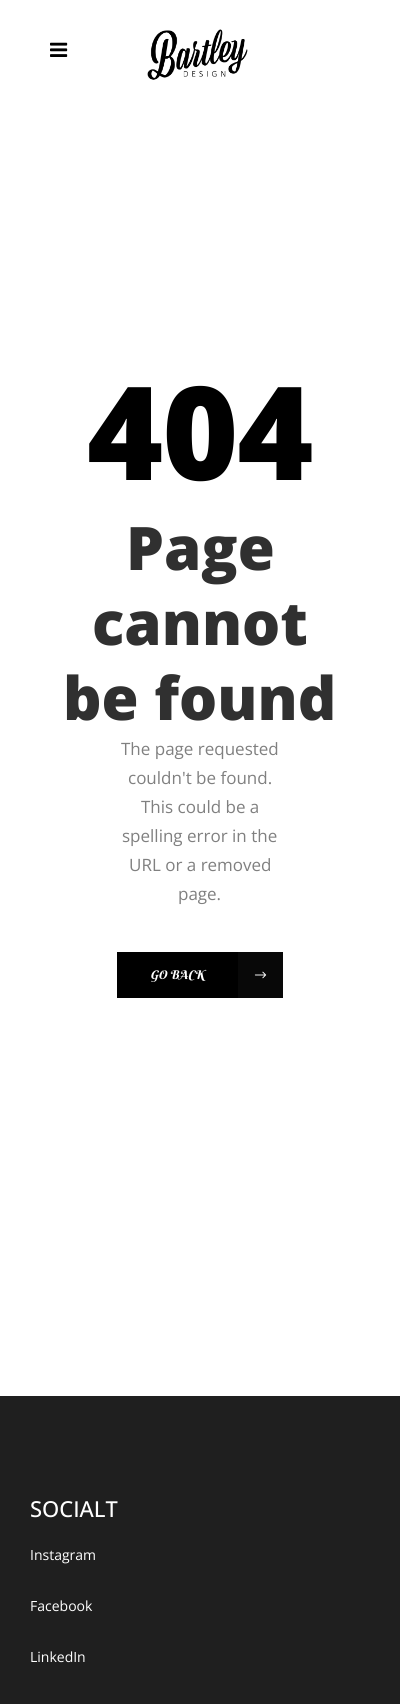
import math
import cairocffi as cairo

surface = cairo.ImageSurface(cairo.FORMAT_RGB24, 400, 1704)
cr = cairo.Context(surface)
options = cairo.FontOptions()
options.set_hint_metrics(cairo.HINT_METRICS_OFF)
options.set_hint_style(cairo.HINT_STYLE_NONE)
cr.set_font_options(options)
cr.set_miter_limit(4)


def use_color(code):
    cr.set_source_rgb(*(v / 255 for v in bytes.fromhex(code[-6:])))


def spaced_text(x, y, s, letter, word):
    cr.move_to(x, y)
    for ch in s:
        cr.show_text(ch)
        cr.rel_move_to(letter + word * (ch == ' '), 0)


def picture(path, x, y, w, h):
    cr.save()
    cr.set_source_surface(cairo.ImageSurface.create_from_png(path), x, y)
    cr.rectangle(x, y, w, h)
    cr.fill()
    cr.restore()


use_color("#ffffff")
cr.paint()
picture("img1.png", 50, 42, 18, 15)
picture("img2.png", 147, 29, 101, 51)
cr.select_font_face("Open Sans ExtraBold")
cr.set_font_size(130)
use_color("#000000")
spaced_text(87, 480, "404", -1, 0)
cr.set_font_size(60)
use_color("#303030")
cr.move_to(126, 570)
cr.show_text("Page")
cr.move_to(92, 645)
cr.show_text("cannot")
cr.move_to(63, 720)
cr.show_text("be found")
cr.select_font_face("Open Sans")
cr.set_font_size(17)
use_color("#808080")
cr.move_to(121, 755)
cr.show_text("The page requested")
cr.move_to(128, 784)
cr.show_text("couldn't be found.")
cr.move_to(141, 813)
cr.show_text("This could be a")
cr.move_to(122, 842)
cr.show_text("spelling error in the")
cr.move_to(129, 871)
cr.show_text("URL or a removed")
cr.move_to(178, 900)
cr.show_text("page.")
use_color("#000000")
cr.rectangle(117, 952, 121, 46)
cr.fill()
cr.select_font_face("Berkshire Swash", cairo.FONT_SLANT_ITALIC)
cr.set_font_size(12)
use_color("#ffffff")
cr.move_to(150, 979)
cr.show_text("GO BACK")
use_color("#080808")
cr.rectangle(238, 952, 45, 46)
cr.fill()
picture("img3.png", 254, 971, 13, 8)
use_color("#1f1f1f")
cr.rectangle(0, 1396, 400, 308)
cr.fill()
cr.select_font_face("Open Sans Medium")
cr.set_font_size(22)
use_color("#ffffff")
cr.move_to(30, 1517)
cr.show_text("SOCIALT")
cr.select_font_face("Open Sans")
cr.set_font_size(14)
cr.move_to(30, 1560)
cr.show_text("Instagram")
cr.move_to(30, 1611)
cr.show_text("Facebook")
cr.move_to(30, 1662)
cr.show_text("LinkedIn")
surface.write_to_png("result.png")
